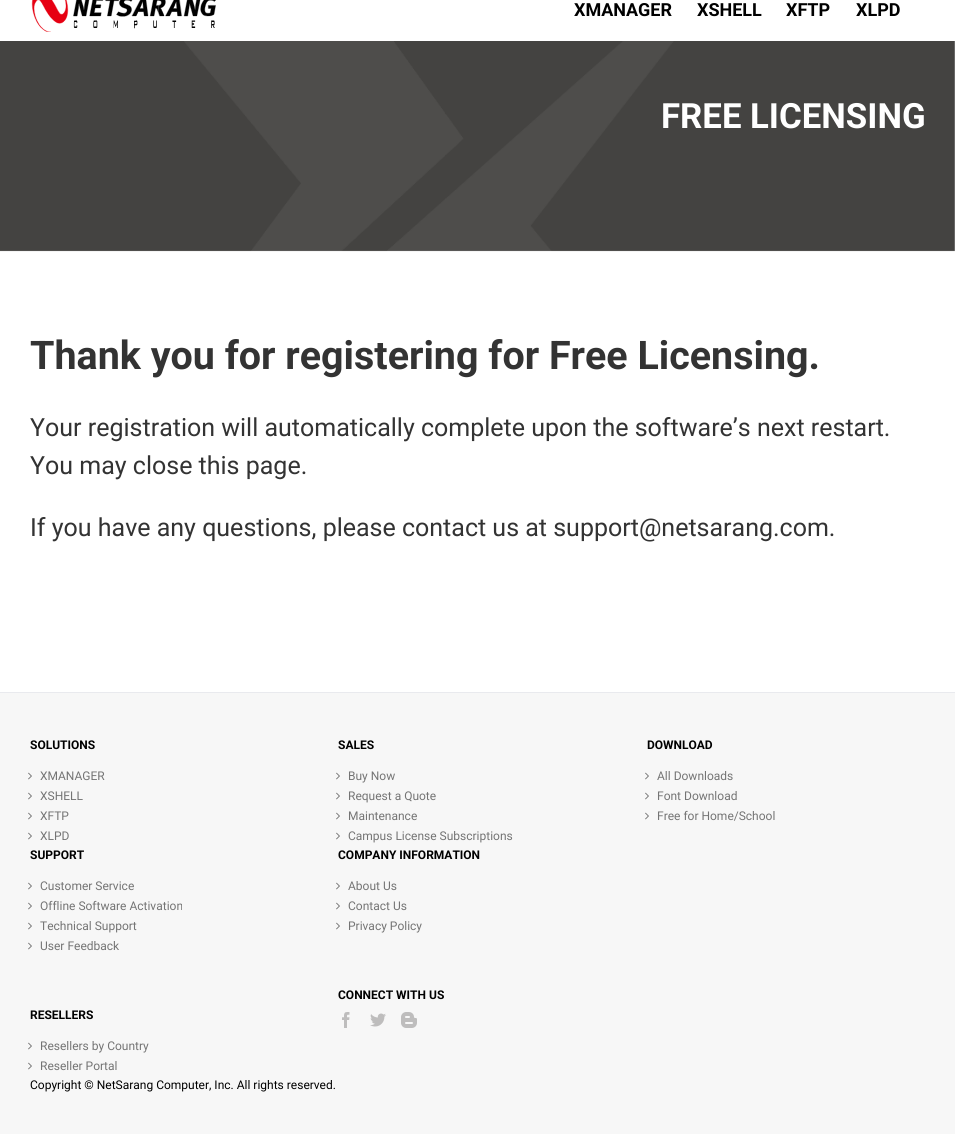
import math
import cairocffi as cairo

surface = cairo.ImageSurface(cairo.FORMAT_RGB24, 955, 1134)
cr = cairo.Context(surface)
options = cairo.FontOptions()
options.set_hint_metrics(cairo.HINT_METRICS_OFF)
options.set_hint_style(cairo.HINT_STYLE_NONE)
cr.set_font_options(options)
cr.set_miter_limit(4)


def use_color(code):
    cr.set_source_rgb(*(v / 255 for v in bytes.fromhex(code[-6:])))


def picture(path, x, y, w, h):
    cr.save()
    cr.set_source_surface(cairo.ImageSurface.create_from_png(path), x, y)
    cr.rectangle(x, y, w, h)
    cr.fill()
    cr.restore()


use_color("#ffffff")
cr.paint()
picture("img1.png", 31, 0, 185, 32)
cr.select_font_face("Roboto", cairo.FONT_SLANT_NORMAL, cairo.FONT_WEIGHT_BOLD)
cr.set_font_size(18)
use_color("#000000")
cr.move_to(574, 16)
cr.show_text("XMANAGER")
cr.move_to(697, 16)
cr.show_text("XSHELL")
cr.move_to(786, 16)
cr.show_text("XFTP")
cr.move_to(856, 16)
cr.show_text("XLPD")
picture("img2.png", 0, 41, 955, 211)
cr.set_font_size(34.75)
use_color("#ffffff")
cr.move_to(661, 128)
cr.show_text("FREE LICENSING")
cr.set_font_size(39.45)
use_color("#333333")
cr.move_to(30, 369)
cr.show_text("Thank you for registering for Free Licensing.")
cr.select_font_face("Roboto")
cr.set_font_size(25)
cr.move_to(30, 436)
cr.show_text("Your registration will automatically complete upon the software’s next restart.")
cr.move_to(30, 474)
cr.show_text("You may close this page.")
cr.move_to(30, 536)
cr.show_text("If you have any questions, please contact us at support@netsarang.com.")
use_color("#f7f7f7")
cr.rectangle(0, 693, 955, 441)
cr.fill()
use_color("#e9eaee")
cr.rectangle(0, 692, 955, 1)
cr.fill()
cr.select_font_face("Roboto", cairo.FONT_SLANT_NORMAL, cairo.FONT_WEIGHT_BOLD)
cr.set_font_size(12)
use_color("#000000")
cr.move_to(30, 749)
cr.show_text("SOLUTIONS")
picture("img3.png", 28, 772, 4, 8)
cr.select_font_face("Roboto")
use_color("#747474")
cr.move_to(40, 780)
cr.show_text("XMANAGER")
picture("img3.png", 28, 792, 4, 8)
cr.move_to(40, 800)
cr.show_text("XSHELL")
picture("img3.png", 28, 812, 4, 8)
cr.move_to(40, 820)
cr.show_text("XFTP")
picture("img3.png", 28, 832, 4, 8)
cr.move_to(40, 840)
cr.show_text("XLPD")
cr.select_font_face("Roboto", cairo.FONT_SLANT_NORMAL, cairo.FONT_WEIGHT_BOLD)
use_color("#000000")
cr.move_to(338, 749)
cr.show_text("SALES")
picture("img3.png", 336, 772, 4, 8)
cr.select_font_face("Roboto")
use_color("#747474")
cr.move_to(348, 780)
cr.show_text("Buy Now")
picture("img3.png", 336, 792, 4, 8)
cr.move_to(348, 800)
cr.show_text("Request a Quote")
picture("img3.png", 336, 812, 4, 8)
cr.move_to(348, 820)
cr.show_text("Maintenance")
picture("img3.png", 336, 832, 4, 8)
cr.move_to(348, 840)
cr.show_text("Campus License Subscriptions")
cr.select_font_face("Roboto", cairo.FONT_SLANT_NORMAL, cairo.FONT_WEIGHT_BOLD)
use_color("#000000")
cr.move_to(647, 749)
cr.show_text("DOWNLOAD")
picture("img3.png", 645, 772, 4, 8)
cr.select_font_face("Roboto")
use_color("#747474")
cr.move_to(657, 780)
cr.show_text("All Downloads")
picture("img3.png", 645, 792, 4, 8)
cr.move_to(657, 800)
cr.show_text("Font Download")
picture("img3.png", 645, 812, 4, 8)
cr.move_to(657, 820)
cr.show_text("Free for Home/School")
cr.select_font_face("Roboto", cairo.FONT_SLANT_NORMAL, cairo.FONT_WEIGHT_BOLD)
use_color("#000000")
cr.move_to(30, 859)
cr.show_text("SUPPORT")
picture("img3.png", 28, 882, 4, 8)
cr.select_font_face("Roboto")
use_color("#747474")
cr.move_to(40, 890)
cr.show_text("Customer Service")
picture("img3.png", 28, 902, 4, 8)
cr.move_to(40, 910)
cr.show_text("Offline Software Activation")
picture("img3.png", 28, 922, 4, 8)
cr.move_to(40, 930)
cr.show_text("Technical Support")
picture("img3.png", 28, 942, 4, 8)
cr.move_to(40, 950)
cr.show_text("User Feedback")
cr.select_font_face("Roboto", cairo.FONT_SLANT_NORMAL, cairo.FONT_WEIGHT_BOLD)
use_color("#000000")
cr.move_to(30, 1019)
cr.show_text("RESELLERS")
picture("img3.png", 28, 1042, 4, 8)
cr.select_font_face("Roboto")
use_color("#747474")
cr.move_to(40, 1050)
cr.show_text("Resellers by Country")
picture("img3.png", 28, 1062, 4, 8)
cr.move_to(40, 1070)
cr.show_text("Reseller Portal")
cr.select_font_face("Roboto", cairo.FONT_SLANT_NORMAL, cairo.FONT_WEIGHT_BOLD)
use_color("#000000")
cr.move_to(338, 859)
cr.show_text("COMPANY INFORMATION")
picture("img3.png", 336, 882, 4, 8)
cr.select_font_face("Roboto")
use_color("#747474")
cr.move_to(348, 890)
cr.show_text("About Us")
picture("img3.png", 336, 902, 4, 8)
cr.move_to(348, 910)
cr.show_text("Contact Us")
picture("img3.png", 336, 922, 4, 8)
cr.move_to(348, 930)
cr.show_text("Privacy Policy")
cr.select_font_face("Roboto", cairo.FONT_SLANT_NORMAL, cairo.FONT_WEIGHT_BOLD)
use_color("#000000")
cr.move_to(338, 999)
cr.show_text("CONNECT WITH US")
picture("img4.png", 342, 1012, 8, 16)
picture("img5.png", 370, 1013, 16, 14)
picture("img6.png", 401, 1012, 16, 16)
cr.select_font_face("Roboto")
cr.move_to(30, 1089)
cr.show_text("Copyright © NetSarang Computer, Inc. All rights reserved.")
surface.write_to_png("result.png")
